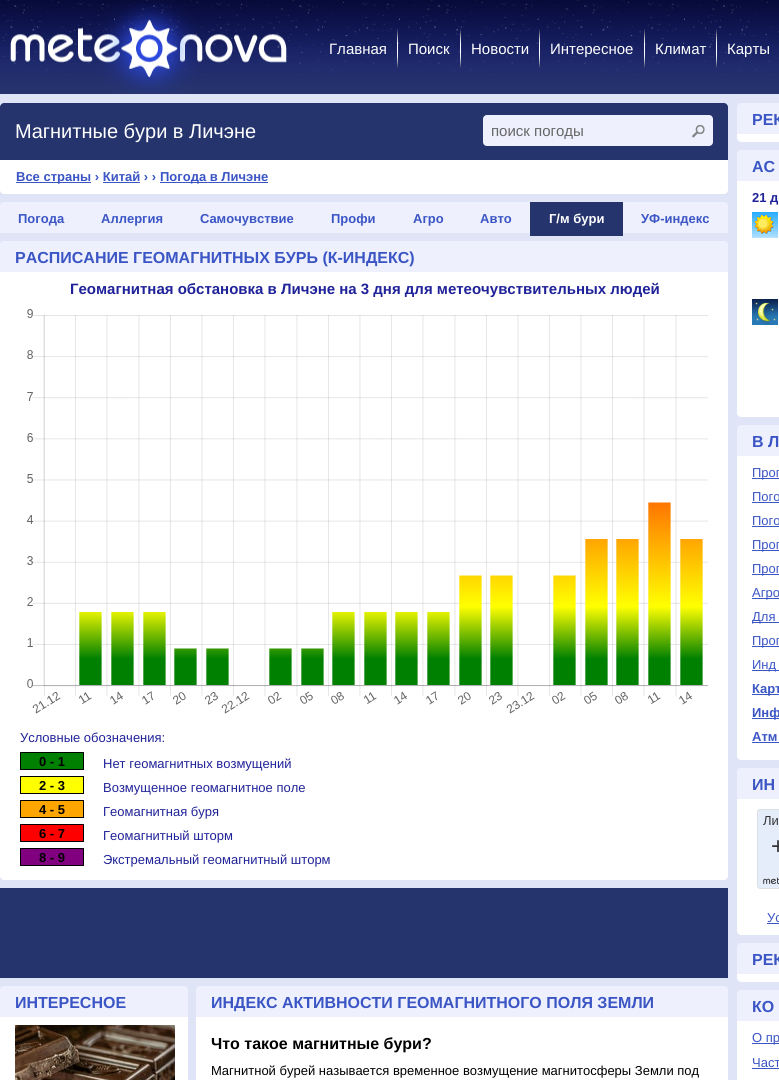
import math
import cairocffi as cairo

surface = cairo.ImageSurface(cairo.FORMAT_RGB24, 779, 1080)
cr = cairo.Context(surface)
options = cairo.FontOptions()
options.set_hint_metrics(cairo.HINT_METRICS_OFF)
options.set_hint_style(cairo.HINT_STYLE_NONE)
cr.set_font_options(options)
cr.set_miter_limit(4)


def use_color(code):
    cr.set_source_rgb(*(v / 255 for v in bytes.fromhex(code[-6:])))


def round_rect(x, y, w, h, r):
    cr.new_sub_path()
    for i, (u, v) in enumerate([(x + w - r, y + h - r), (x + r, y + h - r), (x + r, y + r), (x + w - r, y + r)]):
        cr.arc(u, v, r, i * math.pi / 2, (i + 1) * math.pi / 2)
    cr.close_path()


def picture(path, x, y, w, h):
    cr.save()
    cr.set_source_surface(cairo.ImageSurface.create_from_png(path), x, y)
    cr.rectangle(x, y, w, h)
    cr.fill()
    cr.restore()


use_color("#dfe5f7")
cr.paint()
picture("img1.png", 0, 0, 779, 94)
picture("img2.png", 10, 0, 277, 94)
cr.select_font_face("Liberation Sans")
cr.set_font_size(15)
use_color("#ffffff")
cr.move_to(329, 54)
cr.show_text("Главная")
picture("img3.png", 397, 29, 1, 39)
cr.move_to(408, 54)
cr.show_text("Поиск")
picture("img3.png", 460, 29, 1, 39)
cr.move_to(471, 54)
cr.show_text("Новости")
picture("img3.png", 539, 29, 1, 39)
cr.move_to(550, 54)
cr.show_text("Интересное")
picture("img3.png", 644, 29, 1, 39)
cr.move_to(655, 54)
cr.show_text("Климат")
picture("img3.png", 716, 29, 1, 39)
cr.move_to(727, 54)
cr.show_text("Карты")
use_color("#26346e")
cr.new_path()
cr.move_to(4, 103)
cr.line_to(724, 103)
cr.curve_to(726, 103, 728, 105, 728, 107)
cr.line_to(728, 160)
cr.line_to(0, 160)
cr.line_to(0, 107)
cr.curve_to(0, 105, 2, 103, 4, 103)
cr.close_path()
cr.fill()
cr.set_font_size(20)
use_color("#ffffff")
cr.move_to(15, 138)
cr.show_text("Магнитные бури в Личэне")
use_color("#eef1fd")
round_rect(483, 115, 230, 31, 4)
cr.fill()
cr.set_font_size(15)
use_color("#666666")
cr.move_to(491, 136)
cr.show_text("поиск погоды")
picture("img4.png", 692, 125, 13, 13)
use_color("#ffffff")
cr.rectangle(0, 160, 728, 26)
cr.fill()
use_color("#3b55c5")
cr.rectangle(16, 182, 75, 1)
cr.fill()
cr.select_font_face("Liberation Sans", cairo.FONT_SLANT_NORMAL, cairo.FONT_WEIGHT_BOLD)
cr.set_font_size(13)
cr.move_to(16, 181)
cr.show_text("Все страны › Китай › ›")
cr.rectangle(103, 182, 37, 1)
cr.fill()
cr.rectangle(160, 182, 108, 1)
cr.fill()
cr.move_to(160, 181)
cr.show_text("Погода в Личэне")
use_color("#ffffff")
cr.new_path()
cr.move_to(0, 186)
cr.line_to(728, 186)
cr.line_to(728, 190)
cr.curve_to(728, 192, 726, 194, 724, 194)
cr.line_to(4, 194)
cr.curve_to(2, 194, 0, 192, 0, 190)
cr.close_path()
cr.fill()
use_color("#eef1fd")
cr.new_path()
cr.move_to(4, 202)
cr.line_to(724, 202)
cr.curve_to(726, 202, 728, 204, 728, 206)
cr.line_to(728, 233)
cr.line_to(0, 233)
cr.line_to(0, 206)
cr.curve_to(0, 204, 2, 202, 4, 202)
cr.close_path()
cr.fill()
use_color("#3b55c5")
cr.move_to(18, 223)
cr.show_text("Погода")
cr.move_to(101, 223)
cr.show_text("Аллергия")
cr.move_to(200, 223)
cr.show_text("Самочувствие")
cr.move_to(331, 223)
cr.show_text("Профи")
cr.move_to(413, 223)
cr.show_text("Агро")
cr.move_to(480, 223)
cr.show_text("Авто")
use_color("#26346e")
cr.rectangle(530, 202, 93, 34)
cr.fill()
use_color("#ffffff")
cr.move_to(549, 223)
cr.show_text("Г/м бури")
use_color("#3b55c5")
cr.move_to(641, 223)
cr.show_text("УФ-индекс")
use_color("#eef1fd")
cr.new_path()
cr.move_to(4, 241)
cr.line_to(724, 241)
cr.curve_to(726, 241, 728, 243, 728, 245)
cr.line_to(728, 272)
cr.line_to(0, 272)
cr.line_to(0, 245)
cr.curve_to(0, 243, 2, 241, 4, 241)
cr.close_path()
cr.fill()
cr.set_font_size(16)
use_color("#3b55c5")
cr.move_to(15, 263)
cr.show_text("РАСПИСАНИЕ ГЕОМАГНИТНЫХ БУРЬ (К-ИНДЕКС)")
use_color("#ffffff")
cr.rectangle(0, 272, 728, 600)
cr.fill()
cr.set_font_size(15)
use_color("#1f2298")
cr.move_to(70, 294)
cr.show_text("Геомагнитная обстановка в Личэне на 3 дня для метеочувствительных людей")
picture("img5.png", 27, 309, 681, 405)
cr.select_font_face("Liberation Sans")
cr.set_font_size(13)
cr.move_to(20, 742)
cr.show_text("Условные обозначения:")
use_color("#008000")
cr.rectangle(20.5, 752.5, 63, 17)
cr.fill_preserve()
use_color("#000000")
cr.set_line_width(1)
cr.stroke()
cr.select_font_face("Liberation Sans", cairo.FONT_SLANT_NORMAL, cairo.FONT_WEIGHT_BOLD)
cr.move_to(39, 766)
cr.show_text("0 - 1")
cr.select_font_face("Liberation Sans")
use_color("#1f2298")
cr.move_to(103, 768)
cr.show_text("Нет геомагнитных возмущений")
use_color("#ffff00")
cr.rectangle(20.5, 776.5, 63, 17)
cr.fill_preserve()
use_color("#000000")
cr.stroke()
cr.select_font_face("Liberation Sans", cairo.FONT_SLANT_NORMAL, cairo.FONT_WEIGHT_BOLD)
cr.move_to(39, 790)
cr.show_text("2 - 3")
cr.select_font_face("Liberation Sans")
use_color("#1f2298")
cr.move_to(103, 792)
cr.show_text("Возмущенное геомагнитное поле")
use_color("#ffa500")
cr.rectangle(20.5, 800.5, 63, 17)
cr.fill_preserve()
use_color("#000000")
cr.stroke()
cr.select_font_face("Liberation Sans", cairo.FONT_SLANT_NORMAL, cairo.FONT_WEIGHT_BOLD)
cr.move_to(39, 814)
cr.show_text("4 - 5")
cr.select_font_face("Liberation Sans")
use_color("#1f2298")
cr.move_to(103, 816)
cr.show_text("Геомагнитная буря")
use_color("#ff0000")
cr.rectangle(20.5, 824.5, 63, 17)
cr.fill_preserve()
use_color("#000000")
cr.stroke()
cr.select_font_face("Liberation Sans", cairo.FONT_SLANT_NORMAL, cairo.FONT_WEIGHT_BOLD)
cr.move_to(39, 838)
cr.show_text("6 - 7")
cr.select_font_face("Liberation Sans")
use_color("#1f2298")
cr.move_to(103, 840)
cr.show_text("Геомагнитный шторм")
use_color("#800080")
cr.rectangle(20.5, 848.5, 63, 17)
cr.fill_preserve()
use_color("#000000")
cr.stroke()
cr.select_font_face("Liberation Sans", cairo.FONT_SLANT_NORMAL, cairo.FONT_WEIGHT_BOLD)
cr.move_to(39, 862)
cr.show_text("8 - 9")
cr.select_font_face("Liberation Sans")
use_color("#1f2298")
cr.move_to(103, 864)
cr.show_text("Экстремальный геомагнитный шторм")
use_color("#ffffff")
cr.new_path()
cr.move_to(0, 872)
cr.line_to(728, 872)
cr.line_to(728, 876)
cr.curve_to(728, 878, 726, 880, 724, 880)
cr.line_to(4, 880)
cr.curve_to(2, 880, 0, 878, 0, 876)
cr.close_path()
cr.fill()
use_color("#26346e")
cr.rectangle(0, 888, 728, 90)
cr.fill()
use_color("#eef1fd")
cr.new_path()
cr.move_to(4, 986)
cr.line_to(184, 986)
cr.curve_to(186, 986, 188, 988, 188, 990)
cr.line_to(188, 1017)
cr.line_to(0, 1017)
cr.line_to(0, 990)
cr.curve_to(0, 988, 2, 986, 4, 986)
cr.close_path()
cr.fill()
cr.select_font_face("Liberation Sans", cairo.FONT_SLANT_NORMAL, cairo.FONT_WEIGHT_BOLD)
cr.set_font_size(16)
use_color("#3b55c5")
cr.move_to(15, 1008)
cr.show_text("ИНТЕРЕСНОЕ")
use_color("#ffffff")
cr.rectangle(0, 1017, 188, 63)
cr.fill()
picture("img6.png", 15, 1025, 160, 55)
use_color("#eef1fd")
cr.new_path()
cr.move_to(200, 986)
cr.line_to(724, 986)
cr.curve_to(726, 986, 728, 988, 728, 990)
cr.line_to(728, 1017)
cr.line_to(196, 1017)
cr.line_to(196, 990)
cr.curve_to(196, 988, 198, 986, 200, 986)
cr.close_path()
cr.fill()
use_color("#3b55c5")
cr.move_to(211, 1008)
cr.show_text("ИНДЕКС АКТИВНОСТИ ГЕОМАГНИТНОГО ПОЛЯ ЗЕМЛИ")
use_color("#ffffff")
cr.rectangle(196, 1017, 532, 63)
cr.fill()
use_color("#000000")
cr.move_to(211, 1049)
cr.show_text("Что такое магнитные бури?")
cr.select_font_face("Liberation Sans")
cr.set_font_size(13)
cr.move_to(211, 1075)
cr.show_text("Магнитной бурей называется временное возмущение магнитосферы Земли под")
use_color("#eef1fd")
cr.new_path()
cr.move_to(741, 103)
cr.line_to(779, 103)
cr.curve_to(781, 103, 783, 105, 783, 107)
cr.line_to(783, 134)
cr.line_to(737, 134)
cr.line_to(737, 107)
cr.curve_to(737, 105, 739, 103, 741, 103)
cr.close_path()
cr.fill()
cr.select_font_face("Liberation Sans", cairo.FONT_SLANT_NORMAL, cairo.FONT_WEIGHT_BOLD)
cr.set_font_size(16)
use_color("#3b55c5")
cr.move_to(752, 125)
cr.show_text("РЕК")
use_color("#ffffff")
cr.new_path()
cr.move_to(737, 134)
cr.line_to(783, 134)
cr.line_to(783, 138)
cr.curve_to(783, 140, 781, 142, 779, 142)
cr.line_to(741, 142)
cr.curve_to(739, 142, 737, 140, 737, 138)
cr.close_path()
cr.fill()
use_color("#eef1fd")
cr.new_path()
cr.move_to(741, 150)
cr.line_to(779, 150)
cr.curve_to(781, 150, 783, 152, 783, 154)
cr.line_to(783, 181)
cr.line_to(737, 181)
cr.line_to(737, 154)
cr.curve_to(737, 152, 739, 150, 741, 150)
cr.close_path()
cr.fill()
use_color("#3b55c5")
cr.move_to(752, 172)
cr.show_text("АС")
use_color("#ffffff")
cr.rectangle(737, 181, 42, 228)
cr.fill()
cr.set_font_size(13)
use_color("#1f2298")
cr.move_to(752, 202)
cr.show_text("21 д")
picture("img7.png", 752, 212, 26, 26)
picture("img8.png", 752, 299, 26, 26)
use_color("#ffffff")
cr.new_path()
cr.move_to(737, 409)
cr.line_to(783, 409)
cr.line_to(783, 413)
cr.curve_to(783, 415, 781, 417, 779, 417)
cr.line_to(741, 417)
cr.curve_to(739, 417, 737, 415, 737, 413)
cr.close_path()
cr.fill()
use_color("#eef1fd")
cr.new_path()
cr.move_to(741, 425)
cr.line_to(779, 425)
cr.curve_to(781, 425, 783, 427, 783, 429)
cr.line_to(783, 456)
cr.line_to(737, 456)
cr.line_to(737, 429)
cr.curve_to(737, 427, 739, 425, 741, 425)
cr.close_path()
cr.fill()
cr.set_font_size(16)
use_color("#3b55c5")
cr.move_to(752, 447)
cr.show_text("В Л")
use_color("#ffffff")
cr.rectangle(737, 456, 42, 296)
cr.fill()
use_color("#3b55c5")
cr.rectangle(752, 478, 27, 1)
cr.fill()
cr.select_font_face("Liberation Sans")
cr.set_font_size(13)
cr.move_to(752, 477)
cr.show_text("Прог")
cr.move_to(752, 501)
cr.show_text("Пого")
cr.rectangle(752, 502, 27, 1)
cr.fill()
cr.move_to(752, 525)
cr.show_text("Пого")
cr.rectangle(752, 526, 27, 1)
cr.fill()
cr.rectangle(752, 550, 27, 1)
cr.fill()
cr.move_to(752, 549)
cr.show_text("Прог")
cr.rectangle(752, 574, 27, 1)
cr.fill()
cr.move_to(752, 573)
cr.show_text("Прог")
cr.rectangle(752, 598, 27, 1)
cr.fill()
cr.move_to(752, 597)
cr.show_text("Агро")
cr.rectangle(752, 622, 27, 1)
cr.fill()
cr.move_to(752, 621)
cr.show_text("Для")
cr.rectangle(752, 646, 27, 1)
cr.fill()
cr.move_to(752, 645)
cr.show_text("Прог")
cr.rectangle(752, 670, 27, 1)
cr.fill()
cr.move_to(752, 669)
cr.show_text("Инд")
cr.rectangle(752, 694, 27, 1)
cr.fill()
cr.select_font_face("Liberation Sans", cairo.FONT_SLANT_NORMAL, cairo.FONT_WEIGHT_BOLD)
cr.move_to(752, 693)
cr.show_text("Карт")
cr.rectangle(752, 718, 27, 1)
cr.fill()
cr.move_to(752, 717)
cr.show_text("Инф")
cr.move_to(752, 741)
cr.show_text("Атм")
cr.rectangle(752, 742, 27, 1)
cr.fill()
use_color("#ffffff")
cr.new_path()
cr.move_to(737, 752)
cr.line_to(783, 752)
cr.line_to(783, 756)
cr.curve_to(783, 758, 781, 760, 779, 760)
cr.line_to(741, 760)
cr.curve_to(739, 760, 737, 758, 737, 756)
cr.close_path()
cr.fill()
use_color("#eef1fd")
cr.new_path()
cr.move_to(741, 768)
cr.line_to(779, 768)
cr.curve_to(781, 768, 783, 770, 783, 772)
cr.line_to(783, 799)
cr.line_to(737, 799)
cr.line_to(737, 772)
cr.curve_to(737, 770, 739, 768, 741, 768)
cr.close_path()
cr.fill()
cr.set_font_size(16)
use_color("#3b55c5")
cr.move_to(752, 790)
cr.show_text("ИН")
use_color("#ffffff")
cr.rectangle(737, 799, 42, 128)
cr.fill()
picture("img9.png", 757, 809, 22, 80)
cr.select_font_face("Liberation Sans")
cr.set_font_size(13)
use_color("#3b55c5")
cr.move_to(767, 922)
cr.show_text("Ус")
cr.rectangle(767, 923, 12, 1)
cr.fill()
use_color("#ffffff")
cr.new_path()
cr.move_to(737, 927)
cr.line_to(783, 927)
cr.line_to(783, 931)
cr.curve_to(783, 933, 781, 935, 779, 935)
cr.line_to(741, 935)
cr.curve_to(739, 935, 737, 933, 737, 931)
cr.close_path()
cr.fill()
use_color("#eef1fd")
cr.new_path()
cr.move_to(741, 943)
cr.line_to(779, 943)
cr.curve_to(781, 943, 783, 945, 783, 947)
cr.line_to(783, 974)
cr.line_to(737, 974)
cr.line_to(737, 947)
cr.curve_to(737, 945, 739, 943, 741, 943)
cr.close_path()
cr.fill()
cr.select_font_face("Liberation Sans", cairo.FONT_SLANT_NORMAL, cairo.FONT_WEIGHT_BOLD)
cr.set_font_size(16)
use_color("#3b55c5")
cr.move_to(752, 965)
cr.show_text("РЕК")
use_color("#ffffff")
cr.new_path()
cr.move_to(737, 974)
cr.line_to(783, 974)
cr.line_to(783, 978)
cr.curve_to(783, 980, 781, 982, 779, 982)
cr.line_to(741, 982)
cr.curve_to(739, 982, 737, 980, 737, 978)
cr.close_path()
cr.fill()
use_color("#eef1fd")
cr.new_path()
cr.move_to(741, 990)
cr.line_to(779, 990)
cr.curve_to(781, 990, 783, 992, 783, 994)
cr.line_to(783, 1021)
cr.line_to(737, 1021)
cr.line_to(737, 994)
cr.curve_to(737, 992, 739, 990, 741, 990)
cr.close_path()
cr.fill()
use_color("#3b55c5")
cr.move_to(752, 1012)
cr.show_text("КО")
use_color("#ffffff")
cr.rectangle(737, 1021, 42, 59)
cr.fill()
use_color("#3b55c5")
cr.rectangle(752, 1043, 27, 1)
cr.fill()
cr.select_font_face("Liberation Sans")
cr.set_font_size(13)
cr.move_to(752, 1042)
cr.show_text("О пр")
cr.move_to(752, 1067)
cr.show_text("Част")
cr.rectangle(752, 1068, 27, 1)
cr.fill()
surface.write_to_png("result.png")
